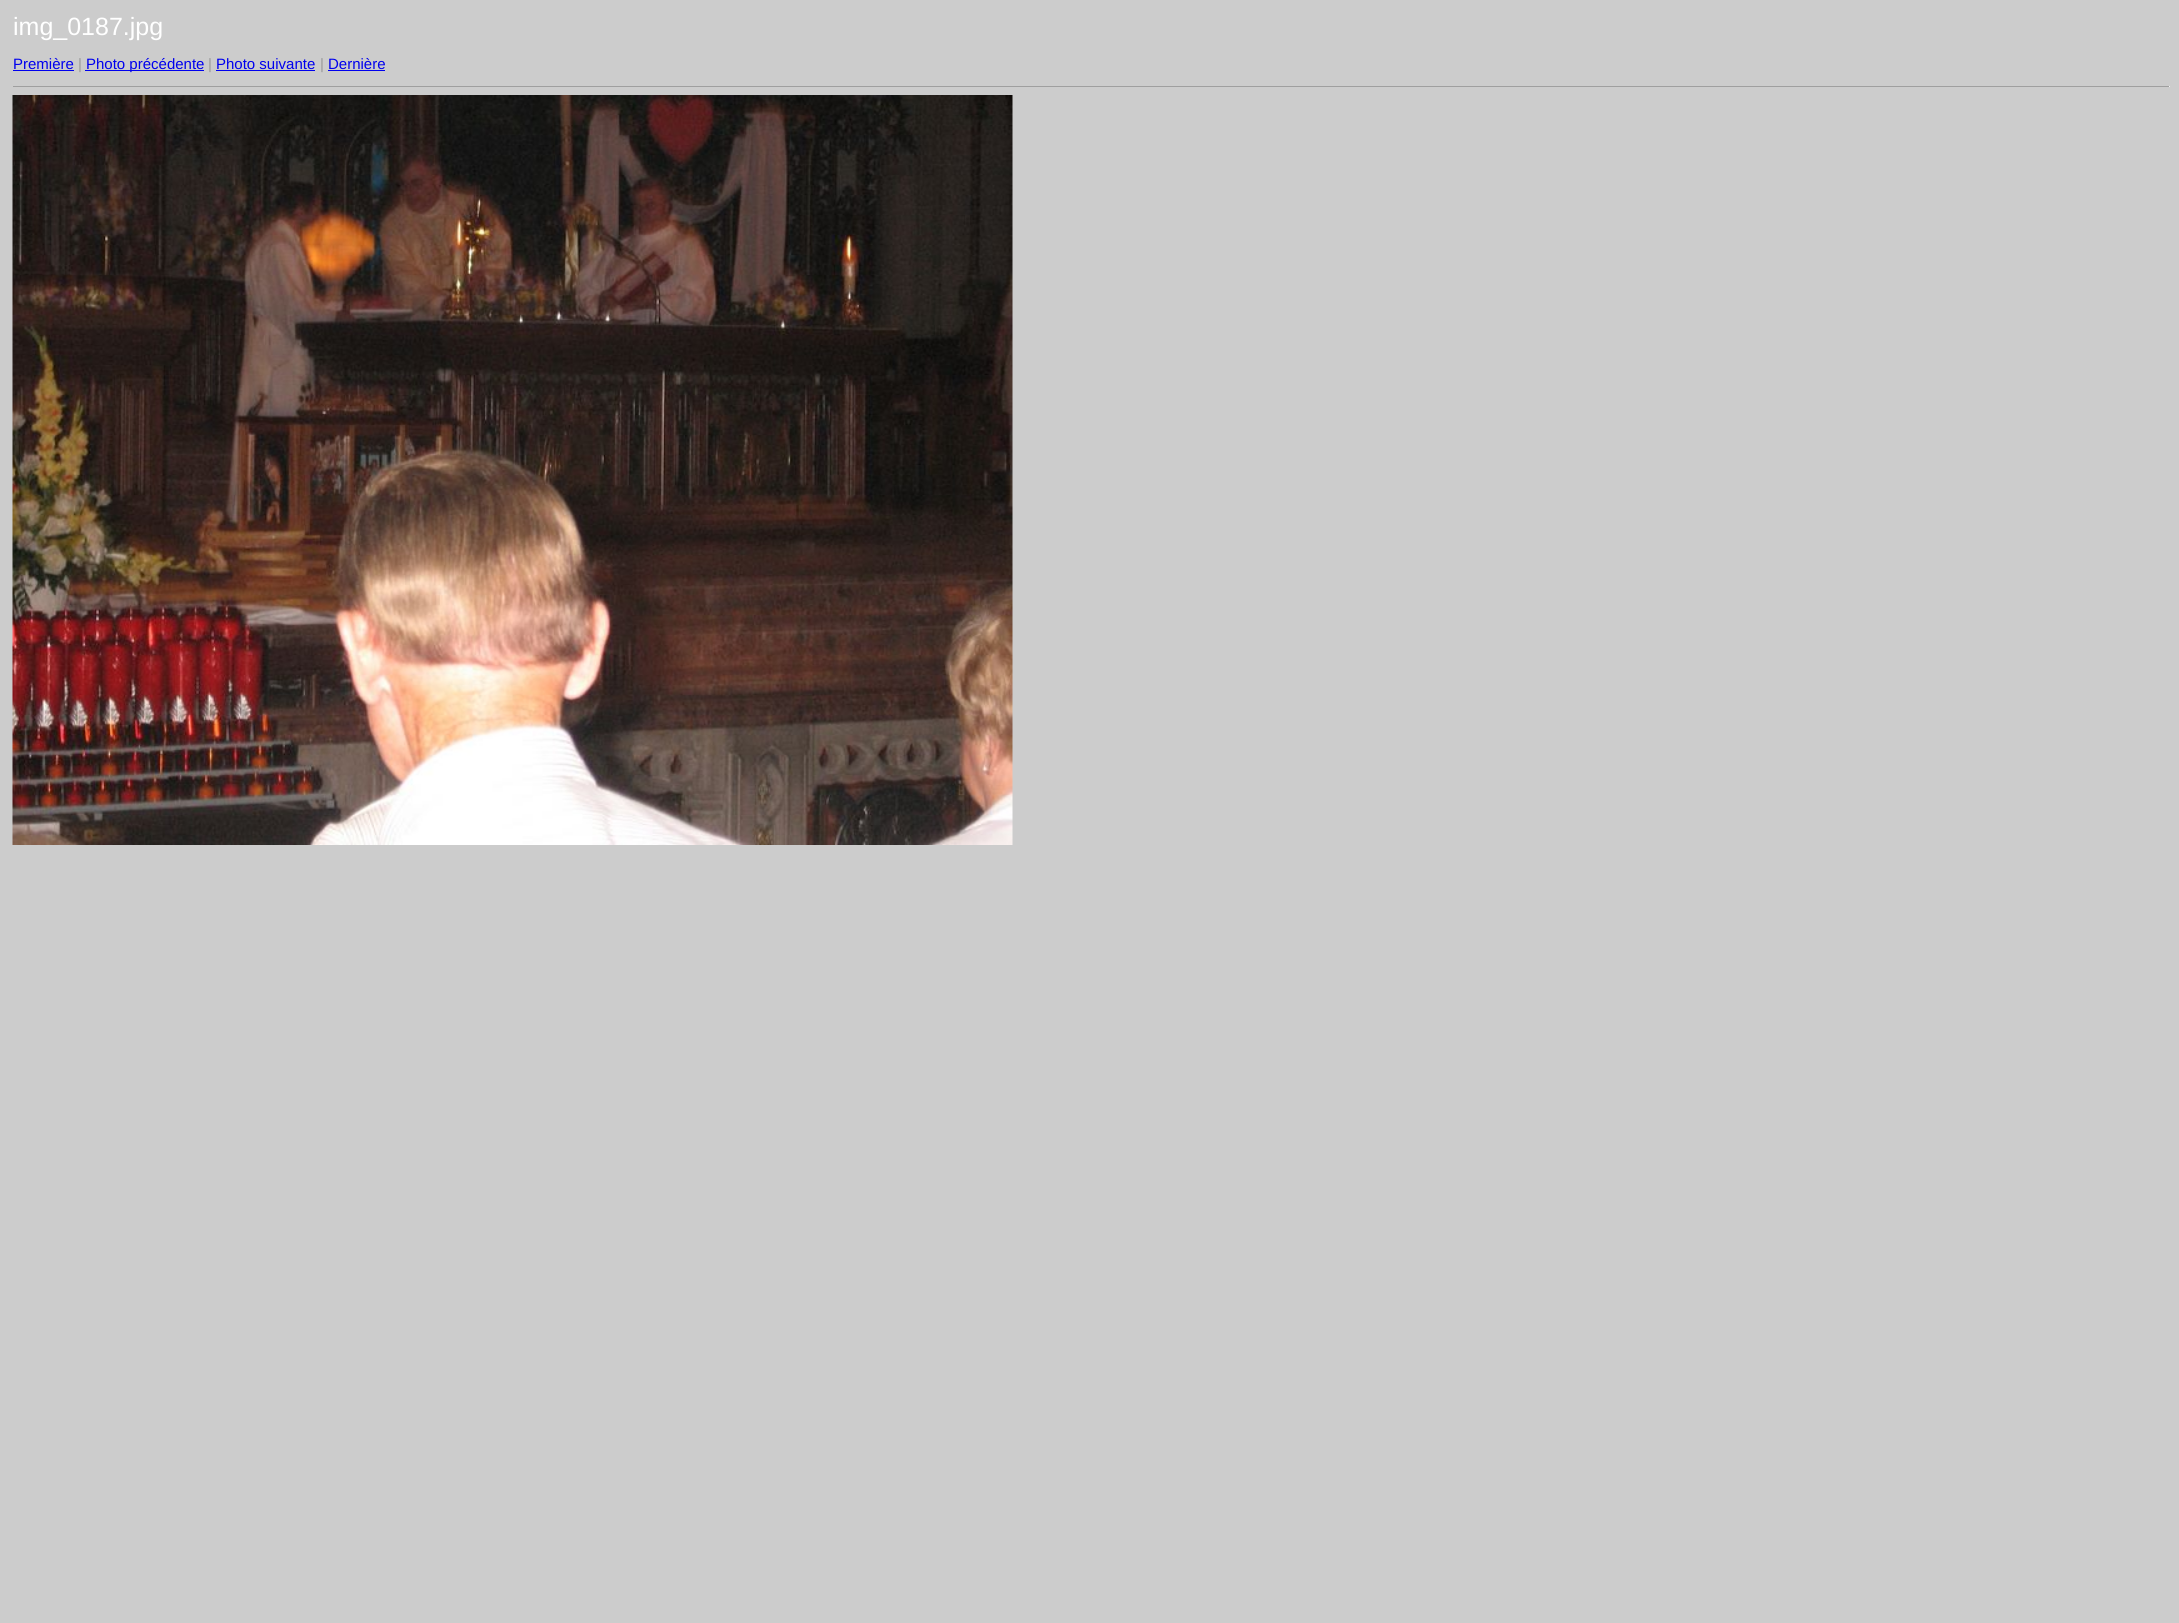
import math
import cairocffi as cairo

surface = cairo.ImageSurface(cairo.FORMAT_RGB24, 2179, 1623)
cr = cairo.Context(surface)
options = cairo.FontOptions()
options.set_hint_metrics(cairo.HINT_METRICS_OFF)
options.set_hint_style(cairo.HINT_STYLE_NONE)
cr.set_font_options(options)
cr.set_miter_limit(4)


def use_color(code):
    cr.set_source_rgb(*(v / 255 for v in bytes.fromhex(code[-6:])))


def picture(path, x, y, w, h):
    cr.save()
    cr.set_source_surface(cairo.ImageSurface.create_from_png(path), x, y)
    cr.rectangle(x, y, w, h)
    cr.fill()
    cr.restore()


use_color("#cccccc")
cr.paint()
cr.select_font_face("Liberation Sans")
cr.set_font_size(25)
use_color("#ffffff")
cr.move_to(13, 35)
cr.show_text("img_0187.jpg")
cr.set_font_size(15)
use_color("#0000ee")
cr.move_to(13, 69)
cr.show_text("Première")
cr.rectangle(13, 70, 61, 1)
cr.fill()
use_color("#999999")
cr.move_to(78, 69)
cr.show_text("|")
use_color("#0000ee")
cr.rectangle(85, 70, 119, 1)
cr.fill()
cr.move_to(86, 69)
cr.show_text("Photo précédente")
use_color("#999999")
cr.move_to(208, 69)
cr.show_text("|")
use_color("#0000ee")
cr.move_to(216, 69)
cr.show_text("Photo suivante")
cr.rectangle(216, 70, 99, 1)
cr.fill()
use_color("#999999")
cr.move_to(320, 69)
cr.show_text("|")
use_color("#0000ee")
cr.move_to(328, 69)
cr.show_text("Dernière")
cr.rectangle(328, 70, 57, 1)
cr.fill()
use_color("#9f9f9f")
cr.rectangle(13, 86, 2157, 1)
cr.fill()
use_color("#eeeeee")
cr.rectangle(2169, 86, 1, 1)
cr.fill()
picture("img1.png", 12, 95, 1001, 750)
surface.write_to_png("result.png")
